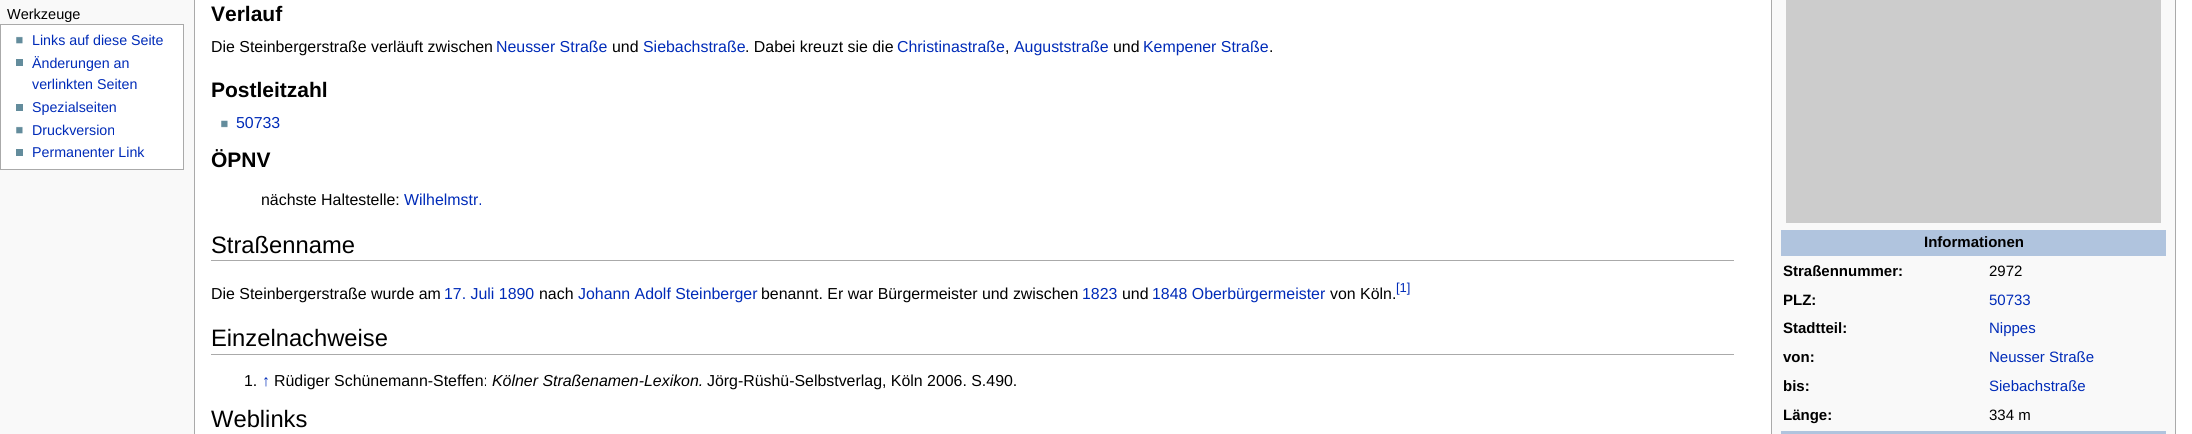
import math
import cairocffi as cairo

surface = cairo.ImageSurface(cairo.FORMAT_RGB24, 2192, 434)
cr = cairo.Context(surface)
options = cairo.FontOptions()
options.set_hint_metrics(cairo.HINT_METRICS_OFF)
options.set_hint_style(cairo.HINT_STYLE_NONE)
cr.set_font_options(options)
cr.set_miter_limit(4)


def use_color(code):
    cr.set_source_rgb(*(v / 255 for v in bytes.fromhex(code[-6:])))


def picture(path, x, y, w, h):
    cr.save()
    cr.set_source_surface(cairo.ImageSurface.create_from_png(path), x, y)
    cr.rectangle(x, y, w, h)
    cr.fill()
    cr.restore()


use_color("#f9f9f9")
cr.paint()
cr.select_font_face("Liberation Sans")
cr.set_font_size(14.5)
use_color("#000000")
cr.move_to(7, 19)
cr.show_text("Werkzeuge")
use_color("#ffffff")
cr.rectangle(0.5, 24.5, 183, 145)
cr.fill_preserve()
use_color("#aaaaaa")
cr.set_line_width(1)
cr.stroke()
picture("img1.png", 16, 36, 7, 8)
cr.set_font_size(14.25)
use_color("#002bb8")
cr.move_to(32, 45)
cr.show_text("Links auf diese Seite")
use_color("#638c9c")
cr.rectangle(16, 59, 7, 7)
cr.fill()
use_color("#002bb8")
cr.move_to(32, 68)
cr.show_text("Änderungen an")
cr.move_to(32, 89)
cr.show_text("verlinkten Seiten")
use_color("#638c9c")
cr.rectangle(16, 104, 7, 7)
cr.fill()
use_color("#002bb8")
cr.move_to(32, 112)
cr.show_text("Spezialseiten")
picture("img1.png", 16, 126, 7, 8)
cr.move_to(32, 135)
cr.show_text("Druckversion")
use_color("#638c9c")
cr.rectangle(16, 149, 7, 7)
cr.fill()
use_color("#002bb8")
cr.move_to(32, 157)
cr.show_text("Permanenter Link")
use_color("#ffffff")
cr.rectangle(195, 0, 1997, 434)
cr.fill()
use_color("#aaaaaa")
cr.rectangle(194, 0, 1, 434)
cr.fill()
cr.select_font_face("Liberation Sans", cairo.FONT_SLANT_NORMAL, cairo.FONT_WEIGHT_BOLD)
cr.set_font_size(21)
use_color("#000000")
cr.move_to(211, 21)
cr.show_text("Verlauf")
cr.select_font_face("Liberation Sans")
cr.set_font_size(15.9)
cr.move_to(211, 52)
cr.show_text("Die Steinbergerstraße verläuft zwischen")
use_color("#002bb8")
cr.move_to(496, 52)
cr.show_text("Neusser Straße")
use_color("#000000")
cr.move_to(612, 52)
cr.show_text("und")
use_color("#002bb8")
cr.move_to(643, 52)
cr.show_text("Siebachstraße")
use_color("#000000")
cr.move_to(745, 52)
cr.show_text(". Dabei kreuzt sie die")
use_color("#002bb8")
cr.move_to(897, 52)
cr.show_text("Christinastraße")
use_color("#000000")
cr.move_to(1005, 52)
cr.show_text(",")
use_color("#002bb8")
cr.move_to(1014, 52)
cr.show_text("Auguststraße")
use_color("#000000")
cr.move_to(1113, 52)
cr.show_text("und")
use_color("#002bb8")
cr.move_to(1143, 52)
cr.show_text("Kempener Straße")
use_color("#000000")
cr.move_to(1269, 52)
cr.show_text(".")
cr.select_font_face("Liberation Sans", cairo.FONT_SLANT_NORMAL, cairo.FONT_WEIGHT_BOLD)
cr.set_font_size(21)
cr.move_to(211, 97)
cr.show_text("Postleitzahl")
picture("img2.png", 221, 120, 7, 8)
cr.select_font_face("Liberation Sans")
cr.set_font_size(15.9)
use_color("#002bb8")
cr.move_to(236, 128)
cr.show_text("50733")
cr.select_font_face("Liberation Sans", cairo.FONT_SLANT_NORMAL, cairo.FONT_WEIGHT_BOLD)
cr.set_font_size(21)
use_color("#000000")
cr.move_to(211, 167)
cr.show_text("ÖPNV")
cr.select_font_face("Liberation Sans")
cr.set_font_size(15.9)
cr.move_to(261, 205)
cr.show_text("nächste Haltestelle:")
use_color("#002bb8")
cr.move_to(404, 205)
cr.show_text("Wilhelmstr.")
use_color("#aaaaaa")
cr.rectangle(211, 260, 1523, 1)
cr.fill()
cr.set_font_size(23.75)
use_color("#000000")
cr.move_to(211, 253)
cr.show_text("Straßenname")
use_color("#f9f9f9")
cr.rectangle(1771.5, -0.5, 404, 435)
cr.fill_preserve()
use_color("#aaaaaa")
cr.stroke()
use_color("#cccccc")
cr.rectangle(1786, 0, 375, 223)
cr.fill()
use_color("#b0c4de")
cr.rectangle(1781, 230, 385, 26)
cr.fill()
cr.select_font_face("Liberation Sans", cairo.FONT_SLANT_NORMAL, cairo.FONT_WEIGHT_BOLD)
cr.set_font_size(15)
use_color("#000000")
cr.move_to(1924, 247)
cr.show_text("Informationen")
cr.move_to(1783, 276)
cr.show_text("Straßennummer:")
cr.select_font_face("Liberation Sans")
cr.move_to(1989, 276)
cr.show_text("2972")
cr.select_font_face("Liberation Sans", cairo.FONT_SLANT_NORMAL, cairo.FONT_WEIGHT_BOLD)
cr.move_to(1783, 305)
cr.show_text("PLZ:")
cr.select_font_face("Liberation Sans")
use_color("#002bb8")
cr.move_to(1989, 305)
cr.show_text("50733")
cr.select_font_face("Liberation Sans", cairo.FONT_SLANT_NORMAL, cairo.FONT_WEIGHT_BOLD)
use_color("#000000")
cr.move_to(1783, 333)
cr.show_text("Stadtteil:")
cr.select_font_face("Liberation Sans")
use_color("#002bb8")
cr.move_to(1989, 333)
cr.show_text("Nippes")
cr.select_font_face("Liberation Sans", cairo.FONT_SLANT_NORMAL, cairo.FONT_WEIGHT_BOLD)
use_color("#000000")
cr.move_to(1783, 362)
cr.show_text("von:")
cr.select_font_face("Liberation Sans")
use_color("#002bb8")
cr.move_to(1989, 362)
cr.show_text("Neusser Straße")
cr.select_font_face("Liberation Sans", cairo.FONT_SLANT_NORMAL, cairo.FONT_WEIGHT_BOLD)
use_color("#000000")
cr.move_to(1783, 391)
cr.show_text("bis:")
cr.select_font_face("Liberation Sans")
use_color("#002bb8")
cr.move_to(1989, 391)
cr.show_text("Siebachstraße")
cr.select_font_face("Liberation Sans", cairo.FONT_SLANT_NORMAL, cairo.FONT_WEIGHT_BOLD)
use_color("#000000")
cr.move_to(1783, 420)
cr.show_text("Länge:")
cr.select_font_face("Liberation Sans")
cr.move_to(1989, 420)
cr.show_text("334 m")
use_color("#b0c4de")
cr.rectangle(1781, 431, 385, 3)
cr.fill()
cr.set_font_size(15.9)
use_color("#000000")
cr.move_to(211, 299)
cr.show_text("Die Steinbergerstraße wurde am")
use_color("#002bb8")
cr.move_to(444, 299)
cr.show_text("17. Juli 1890")
use_color("#000000")
cr.move_to(539, 299)
cr.show_text("nach")
use_color("#002bb8")
cr.move_to(578, 299)
cr.show_text("Johann Adolf Steinberger")
use_color("#000000")
cr.move_to(761, 299)
cr.show_text("benannt. Er war Bürgermeister und zwischen")
use_color("#002bb8")
cr.move_to(1082, 299)
cr.show_text("1823")
use_color("#000000")
cr.move_to(1122, 299)
cr.show_text("und")
use_color("#002bb8")
cr.move_to(1152, 299)
cr.show_text("1848 Oberbürgermeister")
use_color("#000000")
cr.move_to(1330, 299)
cr.show_text("von Köln.")
cr.set_font_size(13)
use_color("#002bb8")
cr.move_to(1396, 292)
cr.show_text("[1]")
use_color("#aaaaaa")
cr.rectangle(211, 354, 1523, 1)
cr.fill()
cr.set_font_size(23.75)
use_color("#000000")
cr.move_to(211, 346)
cr.show_text("Einzelnachweise")
cr.set_font_size(15.9)
cr.move_to(244, 386)
cr.show_text("1.")
use_color("#002bb8")
cr.move_to(262, 386)
cr.show_text("↑")
use_color("#000000")
cr.move_to(274, 386)
cr.show_text("Rüdiger Schünemann-Steffen:")
cr.select_font_face("Liberation Sans", cairo.FONT_SLANT_ITALIC)
cr.move_to(492, 386)
cr.show_text("Kölner Straßenamen-Lexikon.")
cr.select_font_face("Liberation Sans")
cr.move_to(707, 386)
cr.show_text("Jörg-Rüshü-Selbstverlag, Köln 2006. S.490.")
cr.set_font_size(23.75)
cr.move_to(211, 427)
cr.show_text("Weblinks")
surface.write_to_png("result.png")
